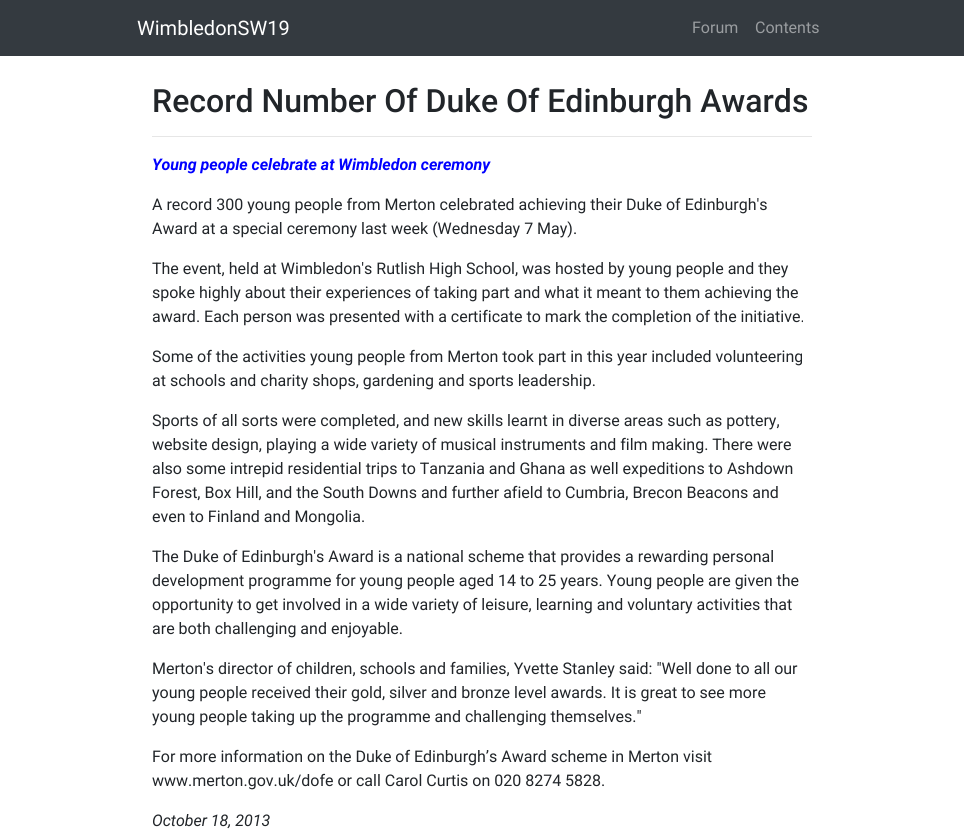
import math
import cairocffi as cairo

surface = cairo.ImageSurface(cairo.FORMAT_RGB24, 964, 834)
cr = cairo.Context(surface)
options = cairo.FontOptions()
options.set_hint_metrics(cairo.HINT_METRICS_OFF)
options.set_hint_style(cairo.HINT_STYLE_NONE)
cr.set_font_options(options)
cr.set_miter_limit(4)


def use_color(code):
    cr.set_source_rgb(*(v / 255 for v in bytes.fromhex(code[-6:])))


use_color("#ffffff")
cr.paint()
use_color("#343a40")
cr.rectangle(0, 0, 964, 56)
cr.fill()
cr.select_font_face("Roboto")
cr.set_font_size(20)
use_color("#ffffff")
cr.move_to(137, 35)
cr.show_text("WimbledonSW19")
cr.set_font_size(16)
use_color("#9a9da0")
cr.move_to(692, 33)
cr.show_text("Forum")
cr.move_to(755, 33)
cr.show_text("Contents")
cr.select_font_face("Roboto Medium")
cr.set_font_size(32)
use_color("#212529")
cr.move_to(152, 112)
cr.show_text("Record Number Of Duke Of Edinburgh Awards")
use_color("#e6e6e6")
cr.rectangle(152, 136, 660, 1)
cr.fill()
cr.select_font_face("Roboto", cairo.FONT_SLANT_ITALIC, cairo.FONT_WEIGHT_BOLD)
cr.set_font_size(16)
use_color("#0000ff")
cr.move_to(152, 170)
cr.show_text("Young people celebrate at Wimbledon ceremony")
cr.select_font_face("Roboto")
use_color("#212529")
cr.move_to(152, 210)
cr.show_text("A record 300 young people from Merton celebrated achieving their Duke of Edinburgh's")
cr.move_to(152, 234)
cr.show_text("Award at a special ceremony last week (Wednesday 7 May).")
cr.move_to(152, 274)
cr.show_text("The event, held at Wimbledon's Rutlish High School, was hosted by young people and they")
cr.move_to(152, 298)
cr.show_text("spoke highly about their experiences of taking part and what it meant to them achieving the")
cr.move_to(152, 322)
cr.show_text("award. Each person was presented with a certificate to mark the completion of the initiative.")
cr.move_to(152, 362)
cr.show_text("Some of the activities young people from Merton took part in this year included volunteering")
cr.move_to(152, 386)
cr.show_text("at schools and charity shops, gardening and sports leadership.")
cr.move_to(152, 426)
cr.show_text("Sports of all sorts were completed, and new skills learnt in diverse areas such as pottery,")
cr.move_to(152, 450)
cr.show_text("website design, playing a wide variety of musical instruments and film making. There were")
cr.move_to(152, 474)
cr.show_text("also some intrepid residential trips to Tanzania and Ghana as well expeditions to Ashdown")
cr.move_to(152, 498)
cr.show_text("Forest, Box Hill, and the South Downs and further afield to Cumbria, Brecon Beacons and")
cr.move_to(152, 522)
cr.show_text("even to Finland and Mongolia.")
cr.move_to(152, 562)
cr.show_text("The Duke of Edinburgh's Award is a national scheme that provides a rewarding personal")
cr.move_to(152, 586)
cr.show_text("development programme for young people aged 14 to 25 years. Young people are given the")
cr.move_to(152, 610)
cr.show_text("opportunity to get involved in a wide variety of leisure, learning and voluntary activities that")
cr.move_to(152, 634)
cr.show_text("are both challenging and enjoyable.")
cr.move_to(152, 674)
cr.show_text("Merton's director of children, schools and families, Yvette Stanley said: \"Well done to all our")
cr.move_to(152, 698)
cr.show_text("young people received their gold, silver and bronze level awards. It is great to see more")
cr.move_to(152, 722)
cr.show_text("young people taking up the programme and challenging themselves.\"")
cr.move_to(152, 762)
cr.show_text("For more information on the Duke of Edinburgh’s Award scheme in Merton visit")
cr.move_to(152, 786)
cr.show_text("www.merton.gov.uk/dofe or call Carol Curtis on 020 8274 5828.")
cr.select_font_face("Roboto", cairo.FONT_SLANT_ITALIC)
cr.move_to(152, 826)
cr.show_text("October 18, 2013")
surface.write_to_png("result.png")
